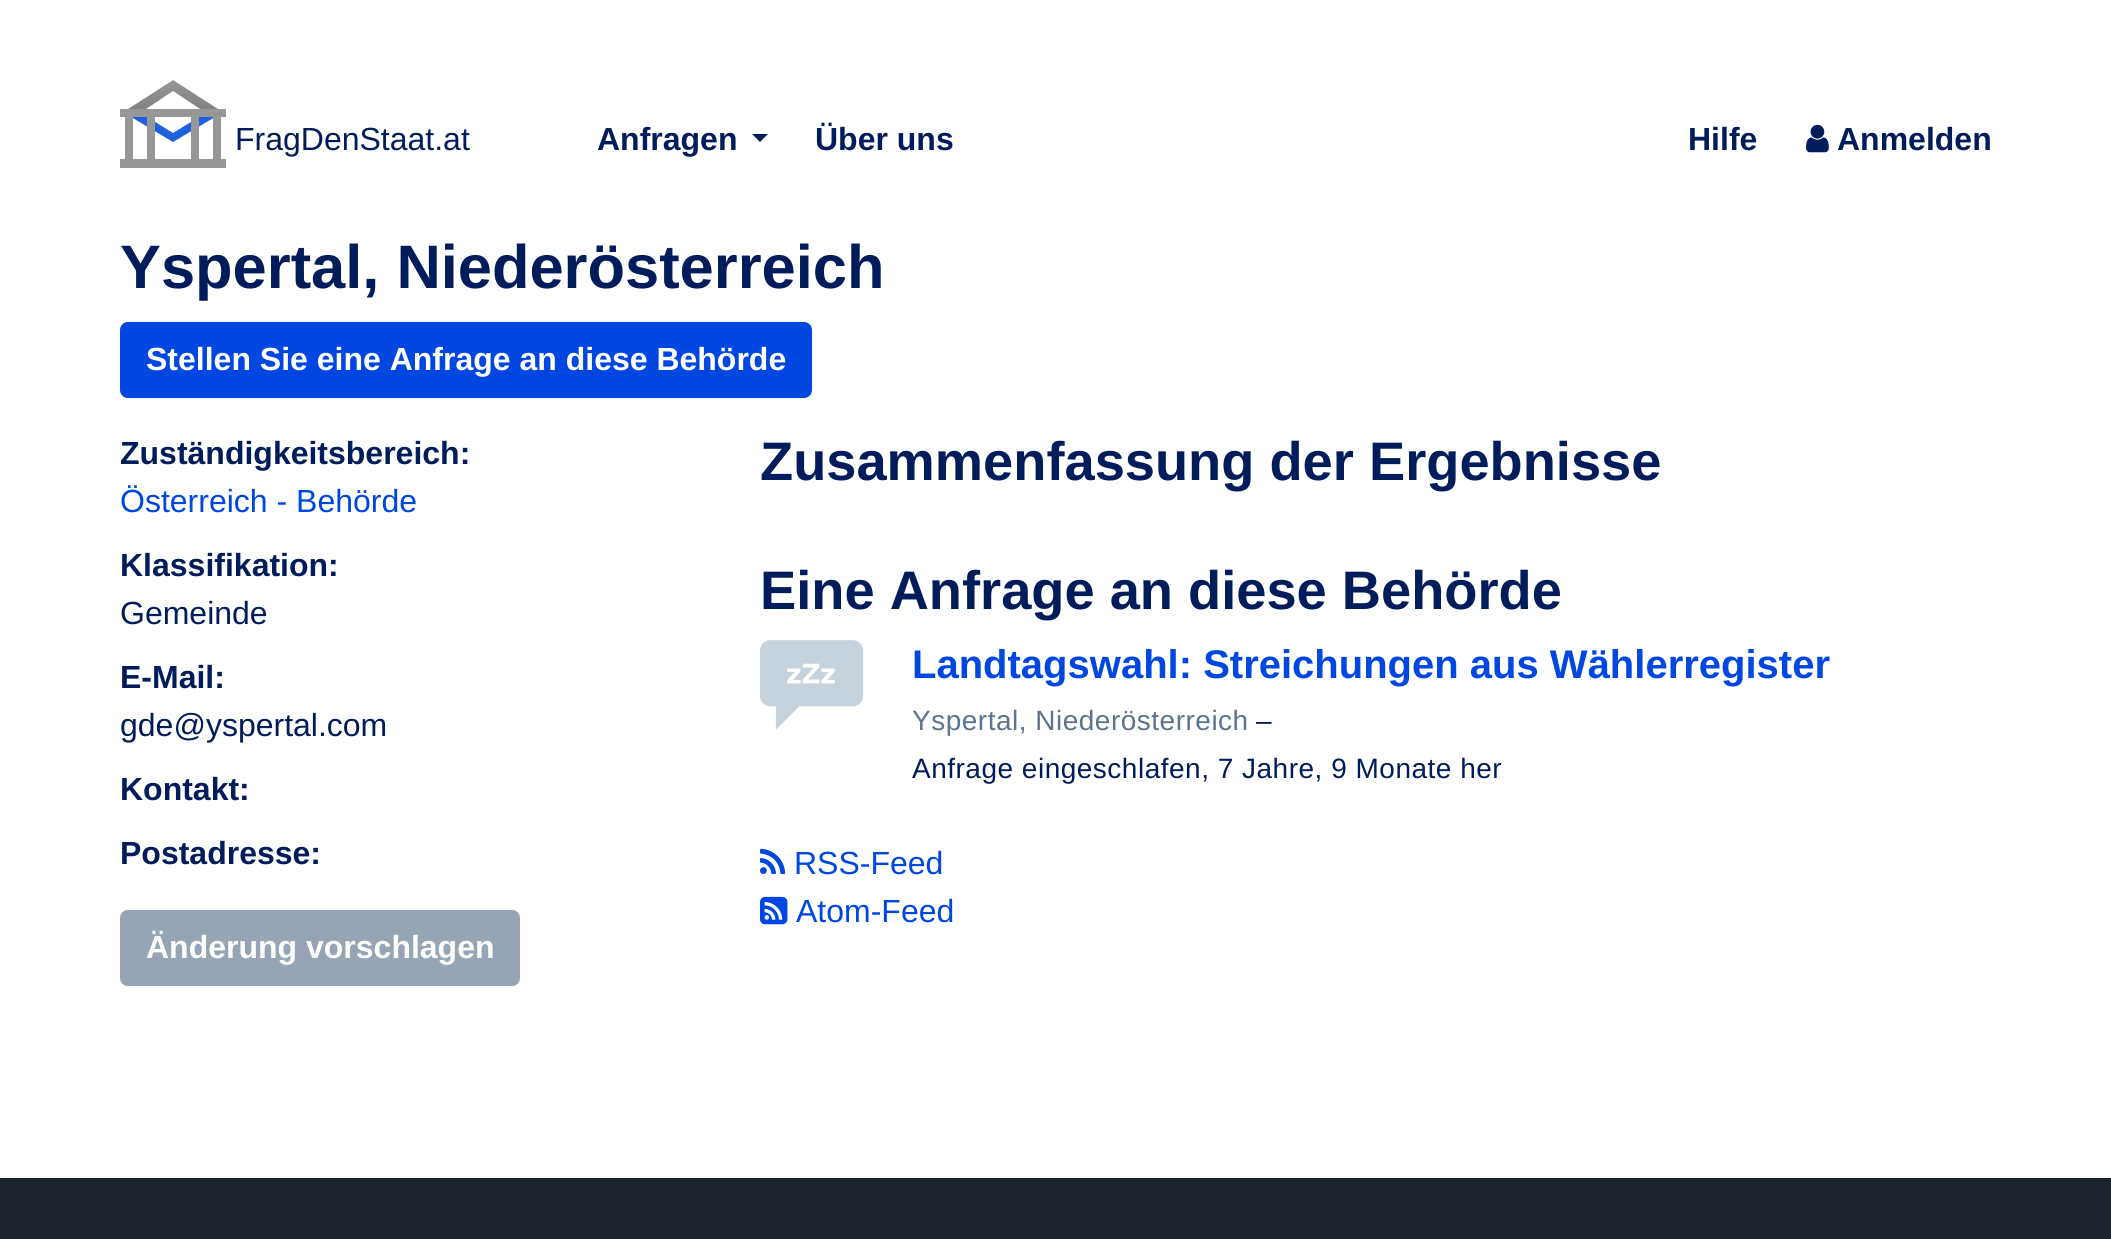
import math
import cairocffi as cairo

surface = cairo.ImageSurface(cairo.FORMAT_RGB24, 2111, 1239)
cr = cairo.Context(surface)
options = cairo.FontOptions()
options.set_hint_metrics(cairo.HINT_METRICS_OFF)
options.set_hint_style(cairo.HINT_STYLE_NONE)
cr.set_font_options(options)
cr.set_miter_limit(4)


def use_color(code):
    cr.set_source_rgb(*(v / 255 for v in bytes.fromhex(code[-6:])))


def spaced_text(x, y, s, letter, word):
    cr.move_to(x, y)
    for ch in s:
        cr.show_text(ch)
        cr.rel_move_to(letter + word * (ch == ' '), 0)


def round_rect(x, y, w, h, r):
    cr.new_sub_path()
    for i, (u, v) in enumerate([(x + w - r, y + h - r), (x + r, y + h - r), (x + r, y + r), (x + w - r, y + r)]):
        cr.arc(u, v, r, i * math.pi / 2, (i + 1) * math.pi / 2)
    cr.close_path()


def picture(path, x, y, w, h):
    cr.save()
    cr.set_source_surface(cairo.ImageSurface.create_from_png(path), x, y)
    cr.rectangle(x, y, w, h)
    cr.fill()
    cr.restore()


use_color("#ffffff")
cr.paint()
cr.select_font_face("Liberation Sans")
cr.set_font_size(32)
use_color("#001c5a")
cr.move_to(235, 150)
cr.show_text("FragDenStaat.at")
use_color("#1d61dc")
cr.new_path()
cr.move_to(131, 117)
cr.line_to(173, 142)
cr.line_to(215, 117)
cr.line_to(199, 117)
cr.line_to(173, 133)
cr.line_to(147, 117)
cr.close_path()
cr.fill()
gradient = cairo.LinearGradient(173, 71, 173, 191)
gradient.add_color_stop_rgba(0, 0.62, 0.62, 0.62, 1)
gradient.add_color_stop_rgba(1, 0.259, 0.259, 0.259, 1)
cr.set_source(gradient)
cr.new_path()
cr.move_to(221, 111)
cr.line_to(173, 80)
cr.line_to(125, 111)
cr.line_to(140, 113)
cr.line_to(173, 91)
cr.line_to(206, 113)
cr.close_path()
cr.fill()
gradient = cairo.LinearGradient(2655, 79, 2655, 493)
gradient.add_color_stop_rgba(0, 0.62, 0.62, 0.62, 1)
gradient.add_color_stop_rgba(1, 0.259, 0.259, 0.259, 1)
cr.set_source(gradient)
cr.rectangle(120, 109, 106, 8)
cr.fill()
gradient = cairo.LinearGradient(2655, 129, 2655, 543)
gradient.add_color_stop_rgba(0, 0.62, 0.62, 0.62, 1)
gradient.add_color_stop_rgba(1, 0.259, 0.259, 0.259, 1)
cr.set_source(gradient)
cr.rectangle(120, 159, 106, 9)
cr.fill()
gradient = cairo.LinearGradient(160, -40, 160, 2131)
gradient.add_color_stop_rgba(0, 0.62, 0.62, 0.62, 1)
gradient.add_color_stop_rgba(1, 0.259, 0.259, 0.259, 1)
cr.set_source(gradient)
cr.rectangle(125, 115, 8, 46)
cr.fill()
gradient = cairo.LinearGradient(270, -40, 270, 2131)
gradient.add_color_stop_rgba(0, 0.62, 0.62, 0.62, 1)
gradient.add_color_stop_rgba(1, 0.259, 0.259, 0.259, 1)
cr.set_source(gradient)
cr.rectangle(147, 115, 8, 46)
cr.fill()
gradient = cairo.LinearGradient(490, -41, 490, 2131)
gradient.add_color_stop_rgba(0, 0.62, 0.62, 0.62, 1)
gradient.add_color_stop_rgba(1, 0.259, 0.259, 0.259, 1)
cr.set_source(gradient)
cr.rectangle(191, 115, 8, 46)
cr.fill()
gradient = cairo.LinearGradient(600, -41, 600, 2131)
gradient.add_color_stop_rgba(0, 0.62, 0.62, 0.62, 1)
gradient.add_color_stop_rgba(1, 0.259, 0.259, 0.259, 1)
cr.set_source(gradient)
cr.rectangle(213, 115, 8, 46)
cr.fill()
cr.select_font_face("Liberation Sans", cairo.FONT_SLANT_NORMAL, cairo.FONT_WEIGHT_BOLD)
use_color("#001c5a")
cr.move_to(597, 150)
cr.show_text("Anfragen")
cr.new_path()
cr.move_to(752, 134)
cr.line_to(768, 134)
cr.line_to(760, 142)
cr.close_path()
cr.fill()
cr.move_to(815, 150)
cr.show_text("Über uns")
cr.move_to(1688, 150)
cr.show_text("Hilfe")
picture("img1.png", 1806, 124, 23, 29)
cr.move_to(1837, 150)
cr.show_text("Anmelden")
cr.set_font_size(61.4)
cr.move_to(120, 288)
cr.show_text("Yspertal, Niederösterreich")
use_color("#0047e1")
round_rect(121, 323, 690, 74, 7)
cr.fill_preserve()
cr.stroke()
cr.set_font_size(32)
use_color("#ffffff")
cr.move_to(146, 370)
cr.show_text("Stellen Sie eine Anfrage an diese Behörde")
use_color("#001c5a")
cr.move_to(120, 464)
cr.show_text("Zuständigkeitsbereich:")
cr.select_font_face("Liberation Sans")
use_color("#0047e1")
cr.move_to(120, 512)
cr.show_text("Österreich - Behörde")
cr.select_font_face("Liberation Sans", cairo.FONT_SLANT_NORMAL, cairo.FONT_WEIGHT_BOLD)
use_color("#001c5a")
cr.move_to(120, 576)
cr.show_text("Klassifikation:")
cr.select_font_face("Liberation Sans")
cr.move_to(120, 624)
cr.show_text("Gemeinde")
cr.select_font_face("Liberation Sans", cairo.FONT_SLANT_NORMAL, cairo.FONT_WEIGHT_BOLD)
cr.move_to(120, 688)
cr.show_text("E-Mail:")
cr.select_font_face("Liberation Sans")
cr.move_to(120, 736)
cr.show_text("gde@yspertal.com")
cr.select_font_face("Liberation Sans", cairo.FONT_SLANT_NORMAL, cairo.FONT_WEIGHT_BOLD)
cr.move_to(120, 800)
cr.show_text("Kontakt:")
cr.move_to(120, 864)
cr.show_text("Postadresse:")
use_color("#95a5b5")
round_rect(121, 911, 398, 74, 7)
cr.fill_preserve()
cr.stroke()
use_color("#ffffff")
cr.move_to(146, 958)
cr.show_text("Änderung vorschlagen")
cr.set_font_size(54.25)
use_color("#001c5a")
cr.move_to(760, 480)
cr.show_text("Zusammenfassung der Ergebnisse")
cr.move_to(760, 609)
cr.show_text("Eine Anfrage an diese Behörde")
picture("img2.png", 760, 640, 104, 90)
cr.set_font_size(40)
use_color("#0047e1")
cr.move_to(912, 678)
cr.show_text("Landtagswahl: Streichungen aus Wählerregister")
cr.select_font_face("Liberation Sans")
cr.set_font_size(28)
use_color("#5c748d")
spaced_text(912, 730, "Yspertal, Niederösterreich", 0.5, 0)
use_color("#001c5a")
spaced_text(1256, 730, "–", 0.5, 0)
spaced_text(912, 778, "Anfrage eingeschlafen, 7 Jahre, 9 Monate her", 0.5, 0)
picture("img3.png", 760, 848, 26, 26)
cr.set_font_size(32)
use_color("#0047e1")
cr.move_to(794, 874)
cr.show_text("RSS-Feed")
picture("img4.png", 760, 896, 28, 29)
cr.move_to(796, 922)
cr.show_text("Atom-Feed")
use_color("#1c232b")
cr.rectangle(0, 1178, 2111, 61)
cr.fill()
surface.write_to_png("result.png")
